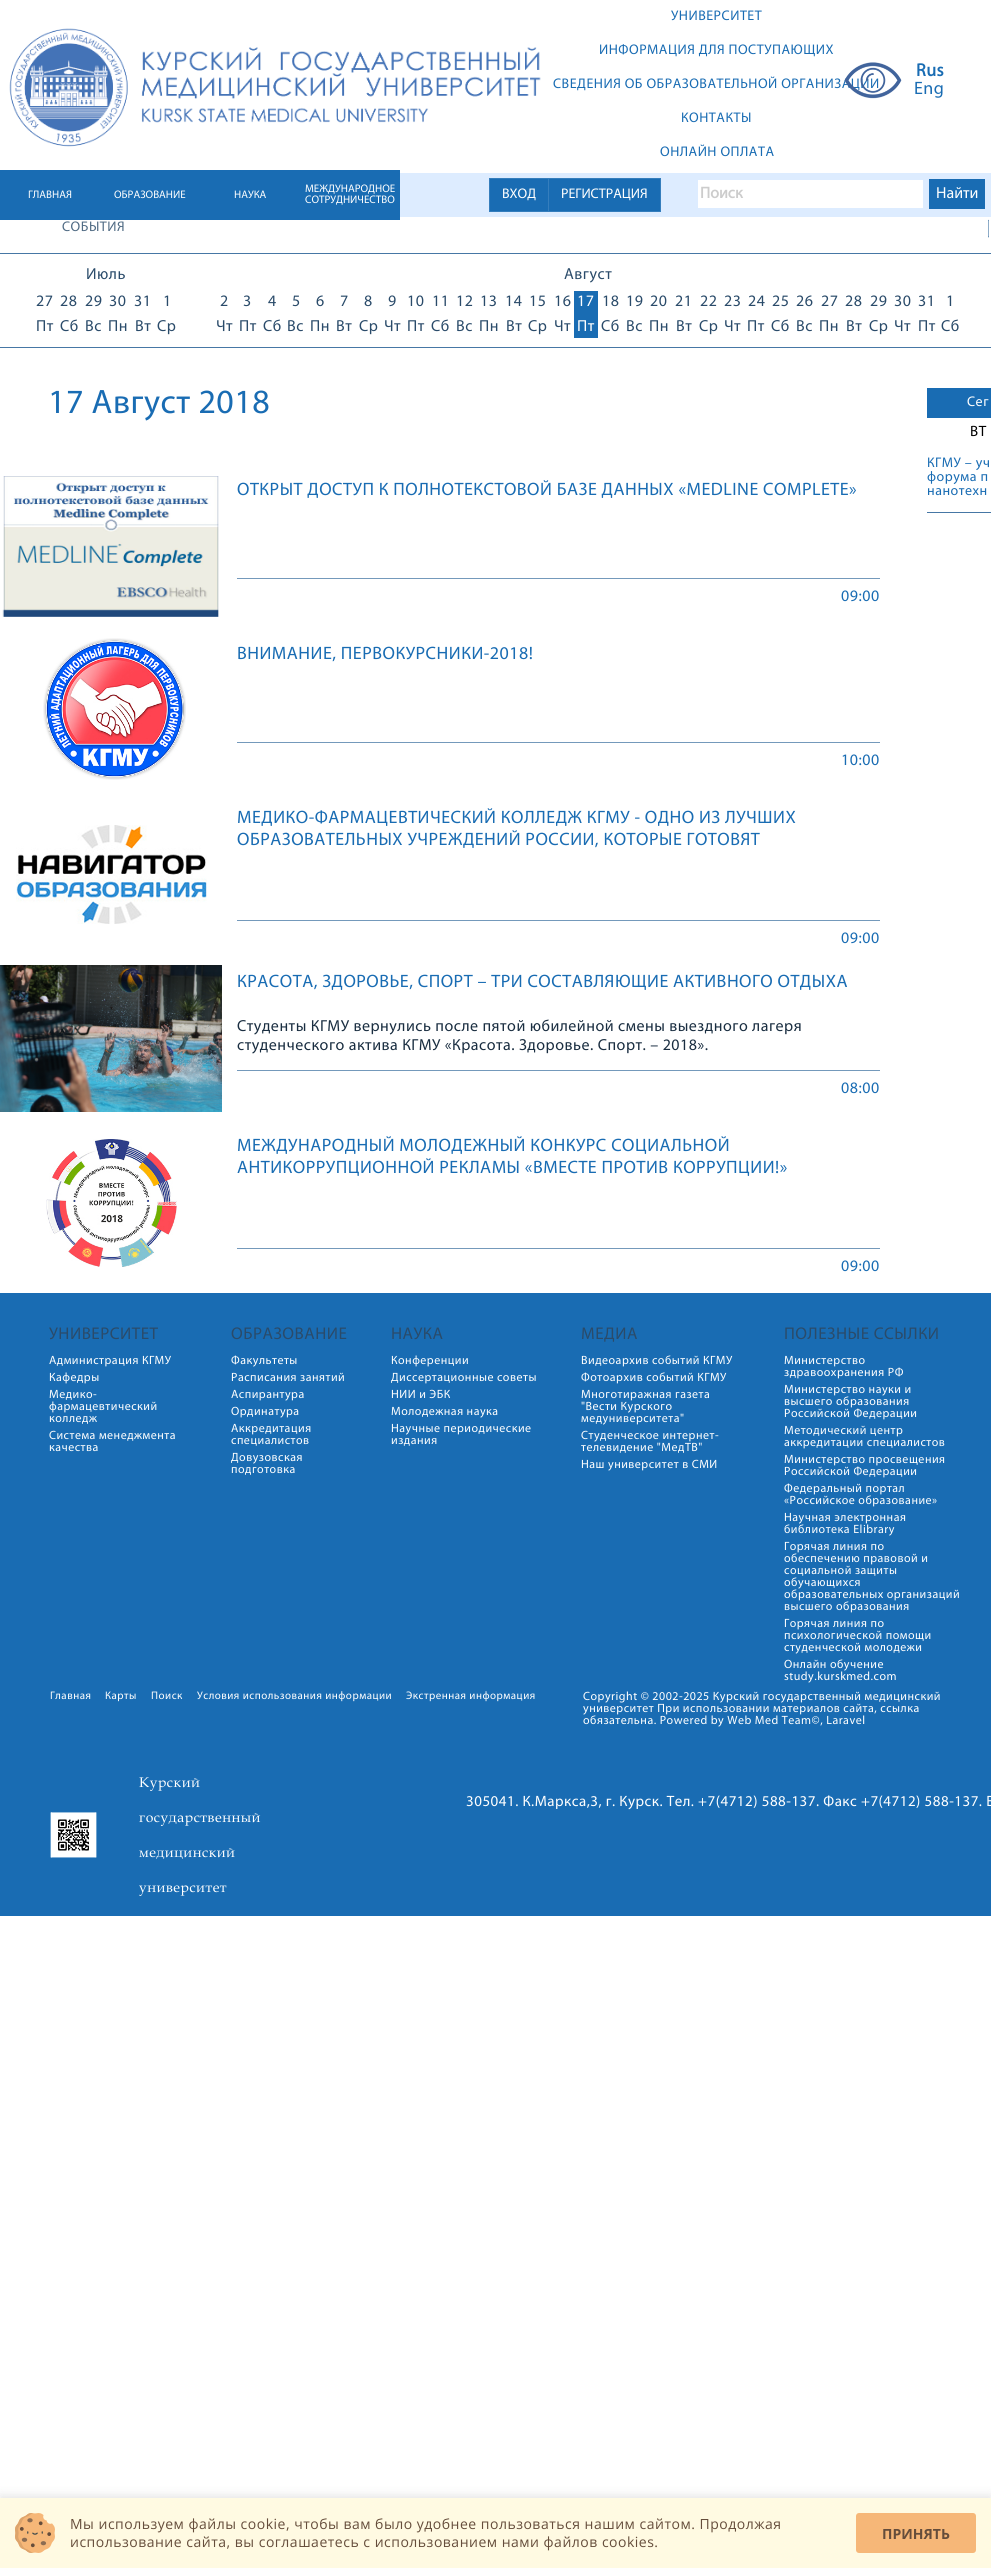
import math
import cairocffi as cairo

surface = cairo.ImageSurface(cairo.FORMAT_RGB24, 991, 2568)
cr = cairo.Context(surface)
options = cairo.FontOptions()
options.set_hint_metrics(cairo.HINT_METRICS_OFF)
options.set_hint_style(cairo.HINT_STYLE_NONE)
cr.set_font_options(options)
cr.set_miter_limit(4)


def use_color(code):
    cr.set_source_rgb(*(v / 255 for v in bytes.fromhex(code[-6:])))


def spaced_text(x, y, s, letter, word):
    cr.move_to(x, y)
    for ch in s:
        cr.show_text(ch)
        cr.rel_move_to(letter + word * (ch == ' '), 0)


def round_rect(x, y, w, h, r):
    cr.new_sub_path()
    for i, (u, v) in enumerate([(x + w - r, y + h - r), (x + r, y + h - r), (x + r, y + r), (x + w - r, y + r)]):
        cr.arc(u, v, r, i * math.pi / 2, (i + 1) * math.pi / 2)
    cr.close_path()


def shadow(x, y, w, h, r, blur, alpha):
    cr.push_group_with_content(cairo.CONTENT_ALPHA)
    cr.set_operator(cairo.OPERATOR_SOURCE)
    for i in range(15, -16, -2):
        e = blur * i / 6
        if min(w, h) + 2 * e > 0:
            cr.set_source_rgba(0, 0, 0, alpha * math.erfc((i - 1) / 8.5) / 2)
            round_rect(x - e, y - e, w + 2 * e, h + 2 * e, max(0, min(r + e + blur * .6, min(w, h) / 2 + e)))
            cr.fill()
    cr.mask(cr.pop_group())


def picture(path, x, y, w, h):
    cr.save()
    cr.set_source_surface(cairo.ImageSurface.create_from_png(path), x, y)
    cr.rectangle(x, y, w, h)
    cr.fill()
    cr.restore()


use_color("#ffffff")
cr.paint()
picture("img1.png", 9, 28, 532, 119)
cr.select_font_face("Myriad")
cr.set_font_size(14)
use_color("#196cb3")
spaced_text(671, 20, "УНИВЕРСИТЕТ", 0.5, 0)
spaced_text(599, 54, "ИНФОРМАЦИЯ ДЛЯ ПОСТУПАЮЩИХ", 0.5, 0)
spaced_text(553, 88, "СВЕДЕНИЯ ОБ ОБРАЗОВАТЕЛЬНОЙ ОРГАНИЗАЦИИ", 0.5, 0)
spaced_text(681, 122, "КОНТАКТЫ", 0.5, 0)
spaced_text(660, 156, "ОНЛАЙН ОПЛАТА", 0.5, 0)
picture("img2.png", 844, 62, 58, 37)
cr.select_font_face("Myriad", cairo.FONT_SLANT_NORMAL, cairo.FONT_WEIGHT_BOLD)
cr.set_font_size(18)
spaced_text(916, 76, "Rus", 0.5, 0)
cr.select_font_face("Myriad")
spaced_text(914, 94, "Eng", 0.5, 0)
cr.rectangle(0, 170, 400, 50)
cr.fill()
cr.set_font_size(11)
use_color("#ffffff")
cr.move_to(28, 198)
cr.show_text("ГЛАВНАЯ")
cr.move_to(114, 198)
cr.show_text("ОБРАЗОВАНИЕ")
cr.move_to(234, 198)
cr.show_text("НАУКА")
cr.move_to(305, 192)
cr.show_text("МЕЖДУНАРОДНОЕ")
cr.move_to(305, 203)
cr.show_text("СОТРУДНИЧЕСТВО")
use_color("#ddecff")
cr.rectangle(400, 173, 591, 44)
cr.fill()
use_color("#196cb3")
cr.rectangle(489.5, 178.5, 59, 33)
cr.fill_preserve()
use_color("#357ebd")
cr.set_line_width(1)
cr.stroke()
cr.set_font_size(14)
use_color("#ffffff")
cr.move_to(502, 198)
cr.show_text("ВХОД")
use_color("#196cb3")
cr.rectangle(548.5, 178.5, 112, 33)
cr.fill_preserve()
use_color("#357ebd")
cr.stroke()
use_color("#ffffff")
cr.move_to(561, 198)
cr.show_text("РЕГИСТРАЦИЯ")
cr.rectangle(698, 180, 225, 28)
cr.fill()
cr.select_font_face("Myriad", cairo.FONT_SLANT_NORMAL, cairo.FONT_WEIGHT_BOLD)
cr.set_font_size(16)
use_color("#cccccc")
cr.move_to(700, 198)
cr.show_text("Поиск")
use_color("#196cb3")
cr.rectangle(929, 179, 56, 30)
cr.fill()
cr.select_font_face("Myriad")
use_color("#ffffff")
cr.move_to(936, 198)
cr.show_text("Найти")
cr.set_font_size(14)
use_color("#506b84")
spaced_text(62, 231, "СОБЫТИЯ", 0.5, 0)
picture("img3.png", 988, 219, 1, 19)
use_color("#4677a5")
cr.rectangle(0, 253, 991, 1)
cr.fill()
cr.set_font_size(16)
use_color("#2a4b6a")
spaced_text(86, 279, "Июль", 0.5, 0)
spaced_text(36, 306, "27", 0.5, 0)
spaced_text(36, 331, "Пт", 0.5, 0)
spaced_text(60, 306, "28", 0.5, 0)
spaced_text(60, 331, "Сб", 0.5, 0)
spaced_text(85, 306, "29", 0.5, 0)
spaced_text(85, 331, "Вс", 0.5, 0)
spaced_text(109, 306, "30", 0.5, 0)
spaced_text(108, 331, "Пн", 0.5, 0)
spaced_text(134, 306, "31", 0.5, 0)
spaced_text(135, 331, "Вт", 0.5, 0)
spaced_text(163, 306, "1", 0.5, 0)
spaced_text(157, 331, "Ср", 0.5, 0)
spaced_text(564, 279, "Август", 0.5, 0)
spaced_text(220, 306, "2", 0.5, 0)
spaced_text(216, 331, "Чт", 0.5, 0)
spaced_text(243, 306, "3", 0.5, 0)
spaced_text(239, 331, "Пт", 0.5, 0)
spaced_text(268, 306, "4", 0.5, 0)
spaced_text(263, 331, "Сб", 0.5, 0)
spaced_text(292, 306, "5", 0.5, 0)
spaced_text(287, 331, "Вс", 0.5, 0)
spaced_text(316, 306, "6", 0.5, 0)
spaced_text(310, 331, "Пн", 0.5, 0)
spaced_text(340, 306, "7", 0.5, 0)
spaced_text(336, 331, "Вт", 0.5, 0)
spaced_text(364, 306, "8", 0.5, 0)
spaced_text(359, 331, "Ср", 0.5, 0)
spaced_text(388, 306, "9", 0.5, 0)
spaced_text(384, 331, "Чт", 0.5, 0)
spaced_text(407, 306, "10", 0.5, 0)
spaced_text(407, 331, "Пт", 0.5, 0)
spaced_text(432, 306, "11", 0.5, 0)
spaced_text(431, 331, "Сб", 0.5, 0)
spaced_text(456, 306, "12", 0.5, 0)
spaced_text(456, 331, "Вс", 0.5, 0)
spaced_text(480, 306, "13", 0.5, 0)
spaced_text(479, 331, "Пн", 0.5, 0)
spaced_text(505, 306, "14", 0.5, 0)
spaced_text(506, 331, "Вт", 0.5, 0)
spaced_text(529, 306, "15", 0.5, 0)
spaced_text(528, 331, "Ср", 0.5, 0)
spaced_text(554, 306, "16", 0.5, 0)
spaced_text(554, 331, "Чт", 0.5, 0)
use_color("#196cb3")
cr.rectangle(574, 291, 24, 47)
cr.fill()
use_color("#ffffff")
spaced_text(577, 306, "17", 0.5, 0)
spaced_text(577, 331, "Пт", 0.5, 0)
use_color("#2a4b6a")
spaced_text(602, 306, "18", 0.5, 0)
spaced_text(601, 331, "Сб", 0.5, 0)
spaced_text(626, 306, "19", 0.5, 0)
spaced_text(626, 331, "Вс", 0.5, 0)
spaced_text(650, 306, "20", 0.5, 0)
spaced_text(649, 331, "Пн", 0.5, 0)
spaced_text(675, 306, "21", 0.5, 0)
spaced_text(676, 331, "Вт", 0.5, 0)
spaced_text(700, 306, "22", 0.5, 0)
spaced_text(699, 331, "Ср", 0.5, 0)
spaced_text(724, 306, "23", 0.5, 0)
spaced_text(724, 331, "Чт", 0.5, 0)
spaced_text(748, 306, "24", 0.5, 0)
spaced_text(747, 331, "Пт", 0.5, 0)
spaced_text(772, 306, "25", 0.5, 0)
spaced_text(771, 331, "Сб", 0.5, 0)
spaced_text(796, 306, "26", 0.5, 0)
spaced_text(796, 331, "Вс", 0.5, 0)
spaced_text(821, 306, "27", 0.5, 0)
spaced_text(819, 331, "Пн", 0.5, 0)
spaced_text(845, 306, "28", 0.5, 0)
spaced_text(846, 331, "Вт", 0.5, 0)
spaced_text(870, 306, "29", 0.5, 0)
spaced_text(869, 331, "Ср", 0.5, 0)
spaced_text(894, 306, "30", 0.5, 0)
spaced_text(894, 331, "Чт", 0.5, 0)
spaced_text(918, 306, "31", 0.5, 0)
spaced_text(918, 331, "Пт", 0.5, 0)
spaced_text(946, 306, "1", 0.5, 0)
spaced_text(941, 331, "Сб", 0.5, 0)
use_color("#4677a5")
cr.rectangle(0, 347, 991, 1)
cr.fill()
cr.set_font_size(34)
use_color("#196cb3")
spaced_text(48, 413, "17 Август 2018", 0.5, 0)
picture("img4.png", 2, 476, 217, 141)
cr.set_font_size(18)
spaced_text(237, 495, "ОТКРЫТ ДОСТУП К ПОЛНОТЕКСТОВОЙ БАЗЕ ДАННЫХ «MEDLINE COMPLETE»", 0.5, 0)
use_color("#7499bb")
cr.rectangle(237, 578, 643, 1)
cr.fill()
cr.set_font_size(16)
use_color("#196cb3")
spaced_text(841, 601, "09:00", 0.5, 0)
picture("img5.png", 43, 638, 143, 142)
cr.set_font_size(18)
spaced_text(237, 659, "ВНИМАНИЕ, ПЕРВОКУРСНИКИ-2018!", 0.5, 0)
use_color("#7499bb")
cr.rectangle(237, 742, 643, 1)
cr.fill()
cr.set_font_size(16)
use_color("#196cb3")
spaced_text(841, 765, "10:00", 0.5, 0)
picture("img6.png", 16, 825, 191, 99)
cr.set_font_size(18)
spaced_text(237, 823, "МЕДИКО-ФАРМАЦЕВТИЧЕСКИЙ КОЛЛЕДЖ КГМУ - ОДНО ИЗ ЛУЧШИХ", 0.5, 0)
spaced_text(237, 845, "ОБРАЗОВАТЕЛЬНЫХ УЧРЕЖДЕНИЙ РОССИИ, КОТОРЫЕ ГОТОВЯТ", 0.5, 0)
use_color("#7499bb")
cr.rectangle(237, 920, 643, 1)
cr.fill()
cr.set_font_size(16)
use_color("#196cb3")
spaced_text(841, 943, "09:00", 0.5, 0)
picture("img7.png", 0, 965, 222, 147)
cr.set_font_size(18)
spaced_text(237, 987, "КРАСОТА, ЗДОРОВЬЕ, СПОРТ – ТРИ СОСТАВЛЯЮЩИЕ АКТИВНОГО ОТДЫХА", 0.5, 0)
cr.set_font_size(16)
use_color("#1a2e41")
spaced_text(237, 1031, "Студенты КГМУ вернулись после пятой юбилейной смены выездного лагеря", 0.5, 0)
spaced_text(237, 1050, "студенческого актива КГМУ «Красота. Здоровье. Спорт. – 2018».", 0.5, 0)
use_color("#7499bb")
cr.rectangle(237, 1070, 643, 1)
cr.fill()
use_color("#196cb3")
spaced_text(841, 1093, "08:00", 0.5, 0)
picture("img8.png", 46, 1139, 131, 128)
cr.set_font_size(18)
spaced_text(237, 1151, "МЕЖДУНАРОДНЫЙ МОЛОДЕЖНЫЙ КОНКУРС СОЦИАЛЬНОЙ", 0.5, 0)
spaced_text(237, 1173, "АНТИКОРРУПЦИОННОЙ РЕКЛАМЫ «ВМЕСТЕ ПРОТИВ КОРРУПЦИИ!»", 0.5, 0)
use_color("#7499bb")
cr.rectangle(237, 1248, 643, 1)
cr.fill()
cr.set_font_size(16)
use_color("#196cb3")
spaced_text(841, 1271, "09:00", 0.5, 0)
cr.rectangle(927, 388, 64, 30)
cr.fill()
cr.set_font_size(14)
use_color("#ffffff")
spaced_text(967, 406, "Сег", 0.5, 0)
cr.set_font_size(15)
use_color("#000000")
spaced_text(970, 436, "ВТ", 0.5, 0)
cr.set_font_size(14)
use_color("#196cb3")
spaced_text(927, 467, "КГМУ – уч", 0.5, 0)
spaced_text(927, 481, "форума п", 0.5, 0)
spaced_text(927, 495, "нанотехн", 0.5, 0)
use_color("#4677a5")
cr.rectangle(927, 512, 64, 1)
cr.fill()
use_color("#196cb3")
cr.rectangle(0, 1293, 991, 623)
cr.fill()
cr.set_font_size(17)
use_color("#2a4b6a")
spaced_text(49, 1339, "УНИВЕРСИТЕТ", 0.5, 0)
cr.set_font_size(12)
use_color("#ffffff")
spaced_text(49, 1364, "Администрация КГМУ", 0.5, 0)
spaced_text(49, 1381, "Кафедры", 0.5, 0)
spaced_text(49, 1398, "Медико-", 0.5, 0)
spaced_text(49, 1410, "фармацевтический", 0.5, 0)
spaced_text(49, 1422, "колледж", 0.5, 0)
spaced_text(49, 1439, "Система менеджмента", 0.5, 0)
spaced_text(49, 1451, "качества", 0.5, 0)
cr.set_font_size(17)
use_color("#2a4b6a")
spaced_text(231, 1339, "ОБРАЗОВАНИЕ", 0.5, 0)
cr.set_font_size(12)
use_color("#ffffff")
spaced_text(231, 1364, "Факультеты", 0.5, 0)
spaced_text(231, 1381, "Расписания занятий", 0.5, 0)
spaced_text(231, 1398, "Аспирантура", 0.5, 0)
spaced_text(231, 1415, "Ординатура", 0.5, 0)
spaced_text(231, 1432, "Аккредитация", 0.5, 0)
spaced_text(231, 1444, "специалистов", 0.5, 0)
spaced_text(231, 1461, "Довузовская", 0.5, 0)
spaced_text(231, 1473, "подготовка", 0.5, 0)
cr.set_font_size(17)
use_color("#2a4b6a")
spaced_text(391, 1339, "НАУКА", 0.5, 0)
cr.set_font_size(12)
use_color("#ffffff")
spaced_text(391, 1364, "Конференции", 0.5, 0)
spaced_text(391, 1381, "Диссертационные советы", 0.5, 0)
spaced_text(391, 1398, "НИИ и ЭБК", 0.5, 0)
spaced_text(391, 1415, "Молодежная наука", 0.5, 0)
spaced_text(391, 1432, "Научные периодические", 0.5, 0)
spaced_text(391, 1444, "издания", 0.5, 0)
cr.set_font_size(17)
use_color("#2a4b6a")
spaced_text(581, 1339, "МЕДИА", 0.5, 0)
cr.set_font_size(12)
use_color("#ffffff")
spaced_text(581, 1364, "Видеоархив событий КГМУ", 0.5, 0)
spaced_text(581, 1381, "Фотоархив событий КГМУ", 0.5, 0)
spaced_text(581, 1398, "Многотиражная газета", 0.5, 0)
spaced_text(581, 1410, "\"Вести Курского", 0.5, 0)
spaced_text(581, 1422, "медуниверситета\"", 0.5, 0)
spaced_text(581, 1439, "Студенческое интернет-", 0.5, 0)
spaced_text(581, 1451, "телевидение \"МедТВ\"", 0.5, 0)
spaced_text(581, 1468, "Наш университет в СМИ", 0.5, 0)
cr.set_font_size(17)
use_color("#2a4b6a")
spaced_text(784, 1339, "ПОЛЕЗНЫЕ ССЫЛКИ", 0.5, 0)
cr.set_font_size(12)
use_color("#ffffff")
spaced_text(784, 1364, "Министерство", 0.5, 0)
spaced_text(784, 1376, "здравоохранения РФ", 0.5, 0)
spaced_text(784, 1393, "Министерство науки и", 0.5, 0)
spaced_text(784, 1405, "высшего образования", 0.5, 0)
spaced_text(784, 1417, "Российской Федерации", 0.5, 0)
spaced_text(784, 1434, "Методический центр", 0.5, 0)
spaced_text(784, 1446, "аккредитации специалистов", 0.5, 0)
spaced_text(784, 1463, "Министерство просвещения", 0.5, 0)
spaced_text(784, 1475, "Российской Федерации", 0.5, 0)
spaced_text(784, 1492, "Федеральный портал", 0.5, 0)
spaced_text(784, 1504, "«Российское образование»", 0.5, 0)
spaced_text(784, 1521, "Научная электронная", 0.5, 0)
spaced_text(784, 1533, "библиотека Elibrary", 0.5, 0)
spaced_text(784, 1550, "Горячая линия по", 0.5, 0)
spaced_text(784, 1562, "обеспечению правовой и", 0.5, 0)
spaced_text(784, 1574, "социальной защиты", 0.5, 0)
spaced_text(784, 1586, "обучающихся", 0.5, 0)
spaced_text(784, 1598, "образовательных организаций", 0.5, 0)
spaced_text(784, 1610, "высшего образования", 0.5, 0)
spaced_text(784, 1627, "Горячая линия по", 0.5, 0)
spaced_text(784, 1639, "психологической помощи", 0.5, 0)
spaced_text(784, 1651, "студенческой молодежи", 0.5, 0)
spaced_text(784, 1668, "Онлайн обучение", 0.5, 0)
spaced_text(784, 1680, "study.kurskmed.com", 0.5, 0)
cr.set_font_size(11)
spaced_text(50, 1699, "Главная", 0.5, 0)
spaced_text(105, 1699, "Карты", 0.5, 0)
spaced_text(151, 1699, "Поиск", 0.5, 0)
spaced_text(197, 1699, "Условия использования информации", 0.5, 0)
spaced_text(406, 1699, "Экстренная информация", 0.5, 0)
cr.set_font_size(12)
spaced_text(583, 1700, "Copyright © 2002-2025 Курский государственный медицинский", 0.5, 0)
spaced_text(583, 1712, "университет При использовании материалов сайта, ссылка", 0.5, 0)
spaced_text(583, 1724, "обязательна. Powered by Web Med Team©, Laravel", 0.5, 0)
picture("img9.png", 50, 1812, 47, 46)
cr.select_font_face("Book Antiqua")
cr.set_font_size(14)
spaced_text(139, 1787, "Курский", 0.5, 0)
spaced_text(139, 1822, "государственный", 0.5, 0)
spaced_text(139, 1857, "медицинский", 0.5, 0)
spaced_text(139, 1892, "университет", 0.5, 0)
cr.select_font_face("Myriad")
cr.set_font_size(15)
spaced_text(466, 1806, "305041. К.Маркса,3, г. Курск. Тел. +7(4712) 588-137. Факс +7(4712) 588-137. E", 0.5, 0)
use_color("#000000")
shadow(0, 2495, 991, 70, 0, 5, 0.1)
use_color("#fffae2")
cr.rectangle(0, 2498, 991, 70)
cr.fill()
picture("img10.png", 15, 2513, 40, 40)
cr.select_font_face("Open Sans")
cr.set_font_size(14)
use_color("#654d3b")
spaced_text(70, 2529, "Мы используем файлы cookie, чтобы вам было удобнее пользоваться нашим сайтом. Продолжая", 0.5, 0)
spaced_text(70, 2547, "использование сайта, вы соглашаетесь c использованием нами файлов cookies.", 0.5, 0)
use_color("#f6b778")
round_rect(856, 2513, 120, 40, 3)
cr.fill()
cr.select_font_face("Open Sans", cairo.FONT_SLANT_NORMAL, cairo.FONT_WEIGHT_BOLD)
use_color("#654d3b")
cr.move_to(882, 2539)
cr.show_text("ПРИНЯТЬ")
surface.write_to_png("result.png")
